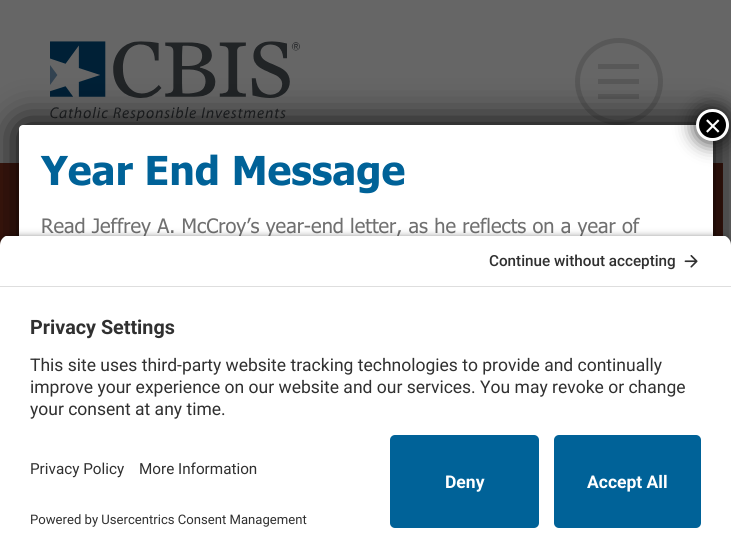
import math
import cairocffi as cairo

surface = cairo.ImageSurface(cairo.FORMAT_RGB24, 731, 557)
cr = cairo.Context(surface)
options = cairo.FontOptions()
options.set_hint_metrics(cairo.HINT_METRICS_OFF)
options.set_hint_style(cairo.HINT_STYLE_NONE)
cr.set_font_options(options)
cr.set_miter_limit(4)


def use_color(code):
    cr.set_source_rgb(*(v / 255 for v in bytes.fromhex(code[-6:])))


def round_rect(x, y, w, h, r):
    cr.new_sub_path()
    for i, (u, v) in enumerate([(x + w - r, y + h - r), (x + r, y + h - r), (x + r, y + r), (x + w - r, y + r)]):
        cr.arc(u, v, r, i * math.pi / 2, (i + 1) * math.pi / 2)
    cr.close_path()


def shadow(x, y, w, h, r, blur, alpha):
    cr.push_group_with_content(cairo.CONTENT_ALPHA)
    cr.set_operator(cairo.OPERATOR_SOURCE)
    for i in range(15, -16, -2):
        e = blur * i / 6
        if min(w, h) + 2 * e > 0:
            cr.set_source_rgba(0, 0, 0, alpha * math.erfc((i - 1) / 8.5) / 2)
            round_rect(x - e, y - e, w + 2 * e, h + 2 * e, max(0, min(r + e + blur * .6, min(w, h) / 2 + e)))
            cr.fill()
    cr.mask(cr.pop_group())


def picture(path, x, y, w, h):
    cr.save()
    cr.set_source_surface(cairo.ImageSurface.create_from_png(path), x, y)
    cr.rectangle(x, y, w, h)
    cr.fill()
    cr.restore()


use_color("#666666")
cr.paint()
picture("img1.png", 50, 41, 250, 80)
round_rect(577.5, 40.5, 83, 82, 41)
use_color("#585858")
cr.set_line_width(5)
cr.stroke()
cr.rectangle(598, 79, 41, 5)
cr.fill()
cr.rectangle(598, 64, 41, 5)
cr.fill()
cr.rectangle(598, 94, 41, 5)
cr.fill()
use_color("#3e160d")
cr.rectangle(0, 163, 723, 82)
cr.fill()
use_color("#020202")
shadow(19, 125, 694, 254, 4, 19, 1)
use_color("#ffffff")
round_rect(19, 125, 694, 254, 4)
cr.fill()
use_color("#020202")
shadow(695, 108, 35, 35, 17.5, 9.5, 0.75)
use_color("#000000")
round_rect(697.5, 110.5, 30, 29, 14.5)
cr.fill_preserve()
use_color("#ffffff")
cr.set_line_width(3)
cr.stroke()
cr.select_font_face("Liberation Sans")
cr.set_font_size(30)
cr.move_to(704, 136)
cr.show_text("×")
cr.select_font_face("Tahoma", cairo.FONT_SLANT_NORMAL, cairo.FONT_WEIGHT_BOLD)
cr.set_font_size(40)
use_color("#006298")
cr.move_to(41, 185)
cr.show_text("Year End Message")
cr.select_font_face("Tahoma")
cr.set_font_size(20)
use_color("#707070")
cr.move_to(41, 233)
cr.show_text("Read Jeffrey A. McCroy’s year-end letter, as he reflects on a year of")
use_color("#000000")
shadow(0, 239, 731, 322, 10, 4.5, 0.8)
cr.save()
cr.new_path()
cr.move_to(10, 235)
cr.line_to(721, 235)
cr.curve_to(726.5, 235, 731, 239.5, 731, 245)
cr.line_to(731, 425)
cr.line_to(0, 425)
cr.line_to(0, 245)
cr.curve_to(0, 239.5, 4.5, 235, 10, 235)
cr.close_path()
cr.clip()
use_color("#ffffff")
cr.rectangle(0, 236, 731, 52)
cr.fill()
cr.restore()
use_color("#dedede")
cr.rectangle(0, 286, 731, 1)
cr.fill()
cr.select_font_face("Roboto Medium")
cr.set_font_size(15.25)
use_color("#303030")
cr.move_to(489, 266)
cr.show_text("Continue without accepting")
picture("img2.png", 684, 255, 14, 13)
use_color("#ffffff")
cr.rectangle(0, 288, 731, 269)
cr.fill()
cr.select_font_face("Roboto", cairo.FONT_SLANT_NORMAL, cairo.FONT_WEIGHT_BOLD)
cr.set_font_size(19.75)
use_color("#303030")
cr.move_to(30, 334)
cr.show_text("Privacy Settings")
cr.select_font_face("Roboto")
cr.set_font_size(17.5)
cr.move_to(30, 371)
cr.show_text("This site uses third-party website tracking technologies to provide and continually")
cr.move_to(30, 393)
cr.show_text("improve your experience on our website and our services. You may revoke or change")
cr.move_to(30, 415)
cr.show_text("your consent at any time.")
cr.set_font_size(15.25)
cr.move_to(30, 474)
cr.show_text("Privacy Policy")
cr.move_to(139, 474)
cr.show_text("More Information")
cr.set_font_size(13.1)
cr.move_to(30, 524)
cr.show_text("Powered by Usercentrics Consent Management")
use_color("#006298")
round_rect(390, 435, 149, 93, 5)
cr.fill()
cr.select_font_face("Roboto", cairo.FONT_SLANT_NORMAL, cairo.FONT_WEIGHT_BOLD)
cr.set_font_size(17.5)
use_color("#ffffff")
cr.move_to(445, 488)
cr.show_text("Deny")
use_color("#006298")
round_rect(554, 435, 147, 93, 5)
cr.fill()
use_color("#ffffff")
cr.move_to(587, 488)
cr.show_text("Accept All")
surface.write_to_png("result.png")
